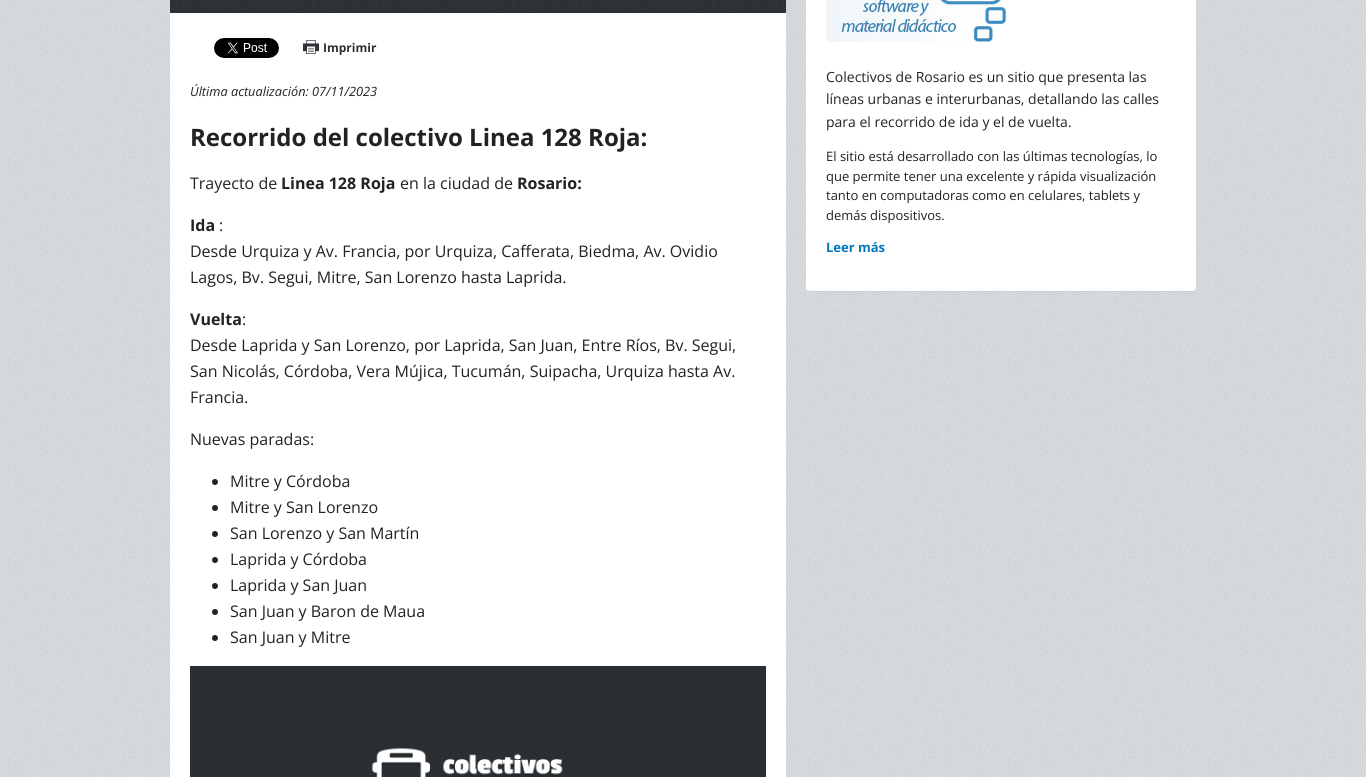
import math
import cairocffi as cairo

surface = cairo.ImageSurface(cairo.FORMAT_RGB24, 1366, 777)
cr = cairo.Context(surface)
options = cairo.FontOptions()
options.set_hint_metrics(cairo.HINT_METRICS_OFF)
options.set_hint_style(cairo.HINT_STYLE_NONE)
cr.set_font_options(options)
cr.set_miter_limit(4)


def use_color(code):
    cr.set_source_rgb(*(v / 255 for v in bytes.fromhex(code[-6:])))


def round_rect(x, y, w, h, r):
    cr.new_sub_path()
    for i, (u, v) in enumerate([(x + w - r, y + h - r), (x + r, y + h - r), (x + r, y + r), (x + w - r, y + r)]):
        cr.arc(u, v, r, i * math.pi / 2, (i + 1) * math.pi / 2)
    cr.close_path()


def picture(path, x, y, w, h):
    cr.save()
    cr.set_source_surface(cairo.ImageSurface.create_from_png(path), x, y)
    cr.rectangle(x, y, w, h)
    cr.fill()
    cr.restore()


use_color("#d7dbdd")
cr.paint()
picture("img1.png", 0, 0, 1366, 777)
use_color("#ffffff")
cr.rectangle(170, 13, 616, 764)
cr.fill()
use_color("#2a2f33")
cr.rectangle(170, 0, 616, 13)
cr.fill()
picture("img2.png", 170, 0, 616, 13)
picture("img3.png", 214, 38, 65, 20)
picture("img4.png", 303, 40, 16, 14)
cr.select_font_face("Open Sans", cairo.FONT_SLANT_NORMAL, cairo.FONT_WEIGHT_BOLD)
cr.set_font_size(12)
cr.move_to(323, 52)
cr.show_text("Imprimir")
cr.select_font_face("Open Sans", cairo.FONT_SLANT_ITALIC)
cr.set_font_size(12.75)
use_color("#222222")
cr.move_to(190, 96)
cr.show_text("Última actualización: 07/11/2023")
cr.select_font_face("Open Sans", cairo.FONT_SLANT_NORMAL, cairo.FONT_WEIGHT_BOLD)
cr.set_font_size(24)
cr.move_to(190, 146)
cr.show_text("Recorrido del colectivo Linea 128 Roja:")
cr.select_font_face("Open Sans")
cr.set_font_size(16)
cr.move_to(190, 189)
cr.show_text("Trayecto de")
cr.select_font_face("Open Sans", cairo.FONT_SLANT_NORMAL, cairo.FONT_WEIGHT_BOLD)
cr.move_to(281, 189)
cr.show_text("Linea 128 Roja")
cr.select_font_face("Open Sans")
cr.move_to(400, 189)
cr.show_text("en la ciudad de")
cr.select_font_face("Open Sans", cairo.FONT_SLANT_NORMAL, cairo.FONT_WEIGHT_BOLD)
cr.move_to(517, 189)
cr.show_text("Rosario:")
cr.move_to(190, 231)
cr.show_text("Ida")
cr.select_font_face("Open Sans")
cr.move_to(219, 231)
cr.show_text(":")
cr.move_to(190, 257)
cr.show_text("Desde Urquiza y Av. Francia, por Urquiza, Cafferata, Biedma, Av. Ovidio")
cr.move_to(190, 283)
cr.show_text("Lagos, Bv. Segui, Mitre, San Lorenzo hasta Laprida.")
cr.select_font_face("Open Sans", cairo.FONT_SLANT_NORMAL, cairo.FONT_WEIGHT_BOLD)
cr.move_to(190, 325)
cr.show_text("Vuelta")
cr.select_font_face("Open Sans")
cr.move_to(242, 325)
cr.show_text(":")
cr.move_to(190, 351)
cr.show_text("Desde Laprida y San Lorenzo, por Laprida, San Juan, Entre Ríos, Bv. Segui,")
cr.move_to(190, 377)
cr.show_text("San Nicolás, Córdoba, Vera Mújica, Tucumán, Suipacha, Urquiza hasta Av.")
cr.move_to(190, 403)
cr.show_text("Francia.")
cr.move_to(190, 445)
cr.show_text("Nuevas paradas:")
cr.new_path()
cr.arc(215, 482, 3, 0, 2 * math.pi)
cr.fill()
cr.move_to(230, 487)
cr.show_text("Mitre y Córdoba")
cr.new_path()
cr.arc(215, 508, 3, 0, 2 * math.pi)
cr.fill()
cr.move_to(230, 513)
cr.show_text("Mitre y San Lorenzo")
cr.new_path()
cr.arc(215, 534, 3, 0, 2 * math.pi)
cr.fill()
cr.move_to(230, 539)
cr.show_text("San Lorenzo y San Martín")
cr.new_path()
cr.arc(215, 560, 3, 0, 2 * math.pi)
cr.fill()
cr.move_to(230, 565)
cr.show_text("Laprida y Córdoba")
cr.new_path()
cr.arc(215, 586, 3, 0, 2 * math.pi)
cr.fill()
cr.move_to(230, 591)
cr.show_text("Laprida y San Juan")
cr.new_path()
cr.arc(215, 612, 3, 0, 2 * math.pi)
cr.fill()
cr.move_to(230, 617)
cr.show_text("San Juan y Baron de Maua")
cr.new_path()
cr.arc(215, 638, 3, 0, 2 * math.pi)
cr.fill()
cr.move_to(230, 643)
cr.show_text("San Juan y Mitre")
picture("img5.png", 190, 666, 576, 111)
cr.set_source_rgba(0, 0, 0, 0.05)
cr.new_path()
cr.move_to(806, 288)
cr.curve_to(806, 290, 807, 292, 809, 292)
cr.line_to(1193, 292)
cr.line_to(1195, 291)
cr.line_to(1196, 288)
cr.curve_to(1196, 290, 1195, 291, 1193, 291)
cr.line_to(809, 291)
cr.curve_to(807, 291, 806, 290, 806, 288)
cr.close_path()
cr.fill()
use_color("#ffffff")
round_rect(806, -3, 390, 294, 3)
cr.fill()
picture("img6.png", 826, 0, 180, 42)
cr.set_font_size(14)
use_color("#222222")
cr.move_to(826, 82)
cr.show_text("Colectivos de Rosario es un sitio que presenta las")
cr.move_to(826, 104)
cr.show_text("líneas urbanas e interurbanas, detallando las calles")
cr.move_to(826, 127)
cr.show_text("para el recorrido de ida y el de vuelta.")
cr.set_font_size(13)
cr.move_to(826, 161)
cr.show_text("El sitio está desarrollado con las últimas tecnologías, lo")
cr.move_to(826, 181)
cr.show_text("que permite tener una excelente y rápida visualización")
cr.move_to(826, 200)
cr.show_text("tanto en computadoras como en celulares, tablets y")
cr.move_to(826, 220)
cr.show_text("demás dispositivos.")
cr.select_font_face("Open Sans", cairo.FONT_SLANT_NORMAL, cairo.FONT_WEIGHT_BOLD)
use_color("#0078bd")
cr.move_to(826, 252)
cr.show_text("Leer más")
surface.write_to_png("result.png")
